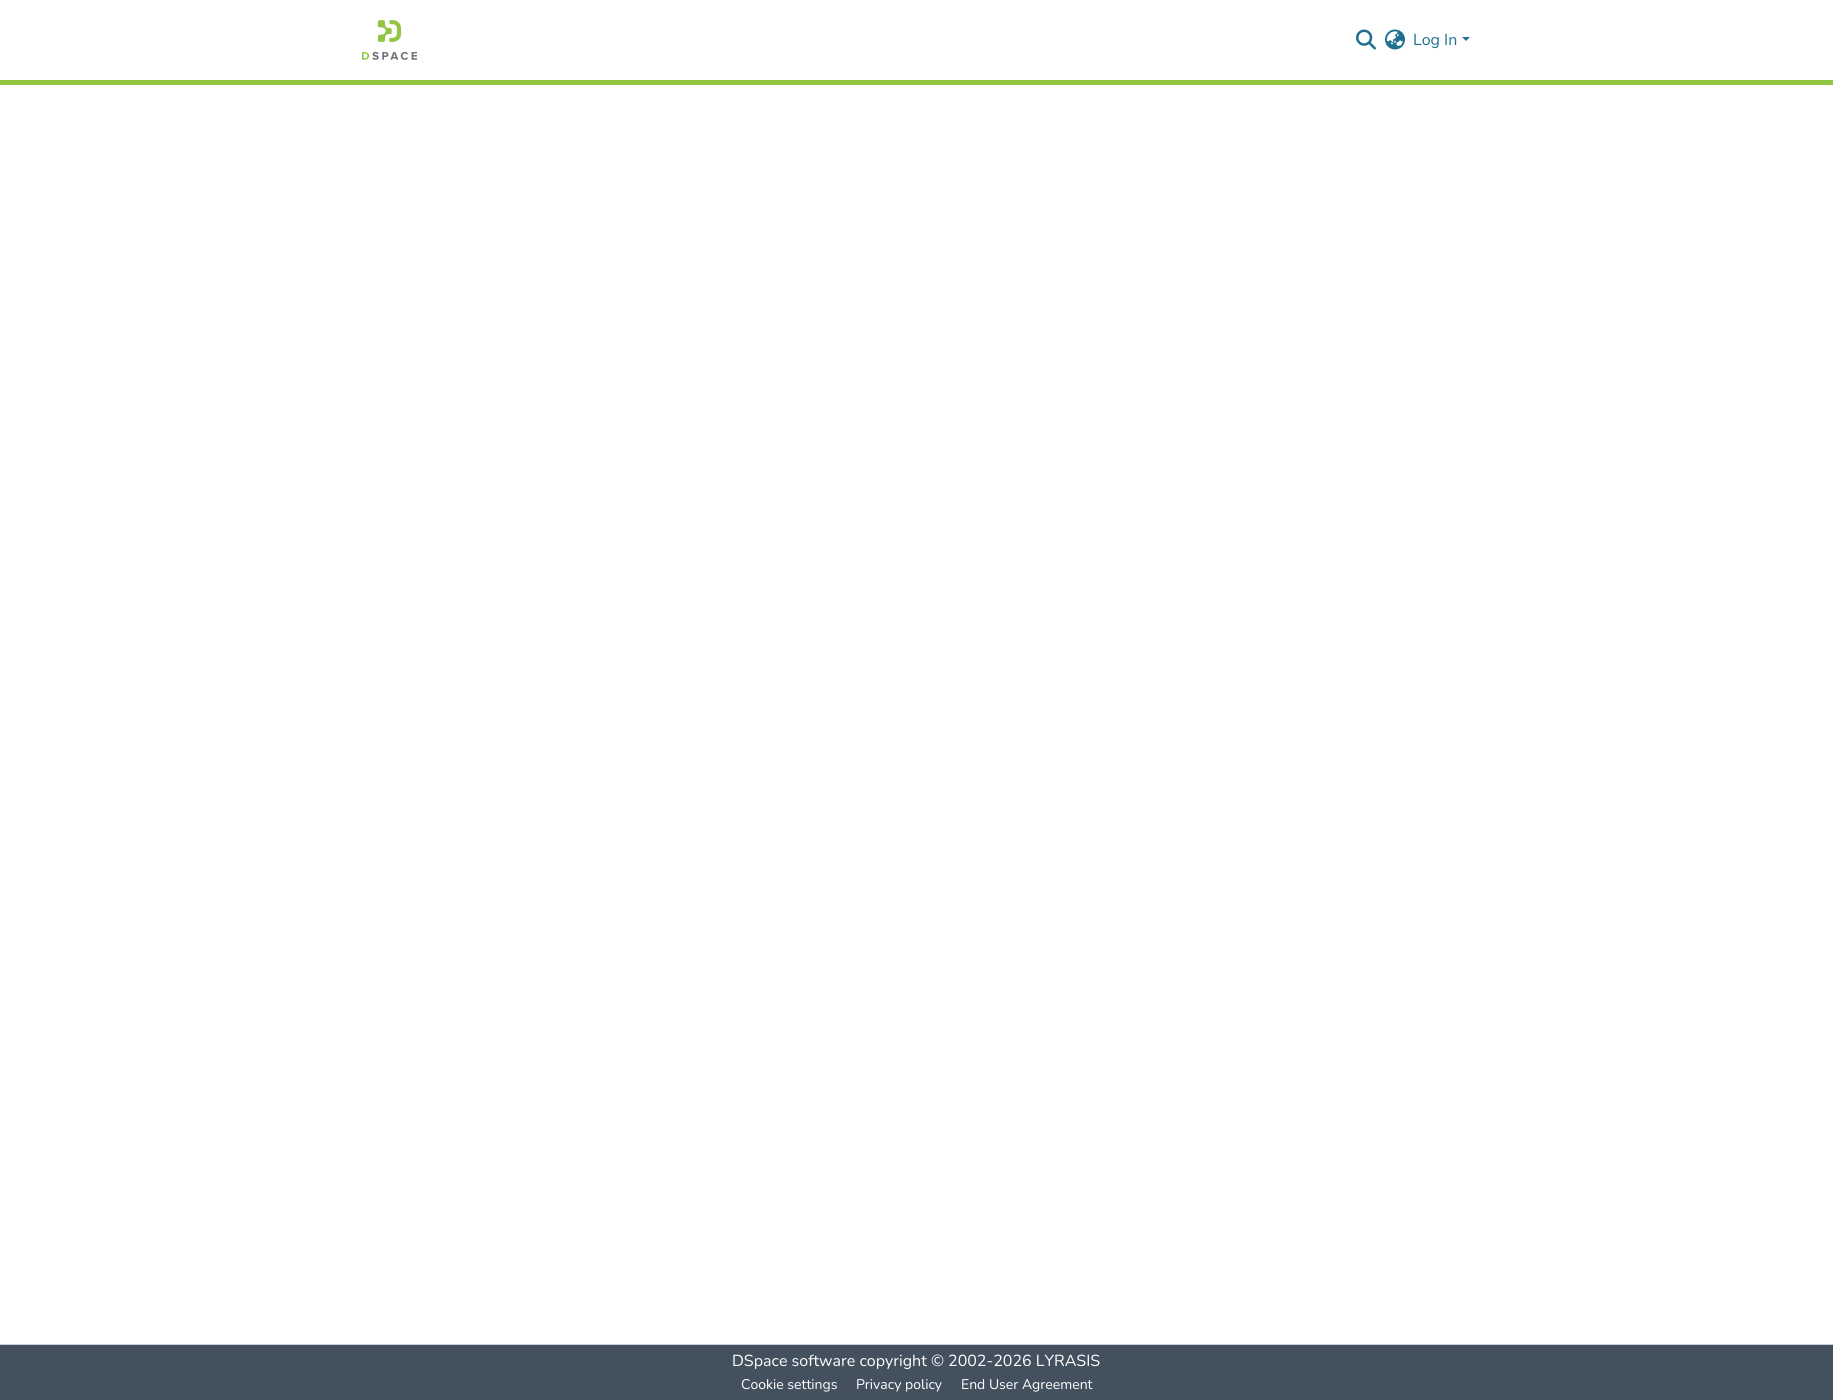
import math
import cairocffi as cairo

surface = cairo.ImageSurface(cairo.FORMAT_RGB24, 1833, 1400)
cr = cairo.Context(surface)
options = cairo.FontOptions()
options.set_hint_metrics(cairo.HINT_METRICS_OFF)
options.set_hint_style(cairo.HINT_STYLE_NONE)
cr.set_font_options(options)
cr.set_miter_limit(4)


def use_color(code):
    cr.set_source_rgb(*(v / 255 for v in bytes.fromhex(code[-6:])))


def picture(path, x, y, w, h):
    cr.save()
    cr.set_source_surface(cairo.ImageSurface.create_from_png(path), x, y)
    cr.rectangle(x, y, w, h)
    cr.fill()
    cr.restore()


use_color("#ffffff")
cr.paint()
use_color("#92c642")
cr.rectangle(0, 80, 1833, 5)
cr.fill()
picture("img1.png", 362, 20, 55, 40)
picture("img2.png", 1356, 29, 20, 21)
picture("img3.png", 1385, 29, 20, 21)
cr.select_font_face("Nunito")
cr.set_font_size(16)
use_color("#1e6f90")
cr.move_to(1413, 45)
cr.show_text("Log In")
cr.new_path()
cr.move_to(1462, 37)
cr.line_to(1470, 37)
cr.line_to(1466, 41)
cr.close_path()
cr.fill()
use_color("#43515f")
cr.rectangle(0, 1345, 1833, 55)
cr.fill()
use_color("#ced4da")
cr.rectangle(0, 1344, 1833, 1)
cr.fill()
use_color("#ffffff")
cr.move_to(732, 1366)
cr.show_text("DSpace software copyright © 2002-2026 LYRASIS")
cr.set_font_size(14)
cr.move_to(741, 1389)
cr.show_text("Cookie settings")
use_color("#495057")
cr.rectangle(846, 1373, 1, 23)
cr.fill()
use_color("#ffffff")
cr.move_to(856, 1389)
cr.show_text("Privacy policy")
use_color("#495057")
cr.rectangle(951, 1373, 1, 23)
cr.fill()
use_color("#ffffff")
cr.move_to(961, 1389)
cr.show_text("End User Agreement")
surface.write_to_png("result.png")
